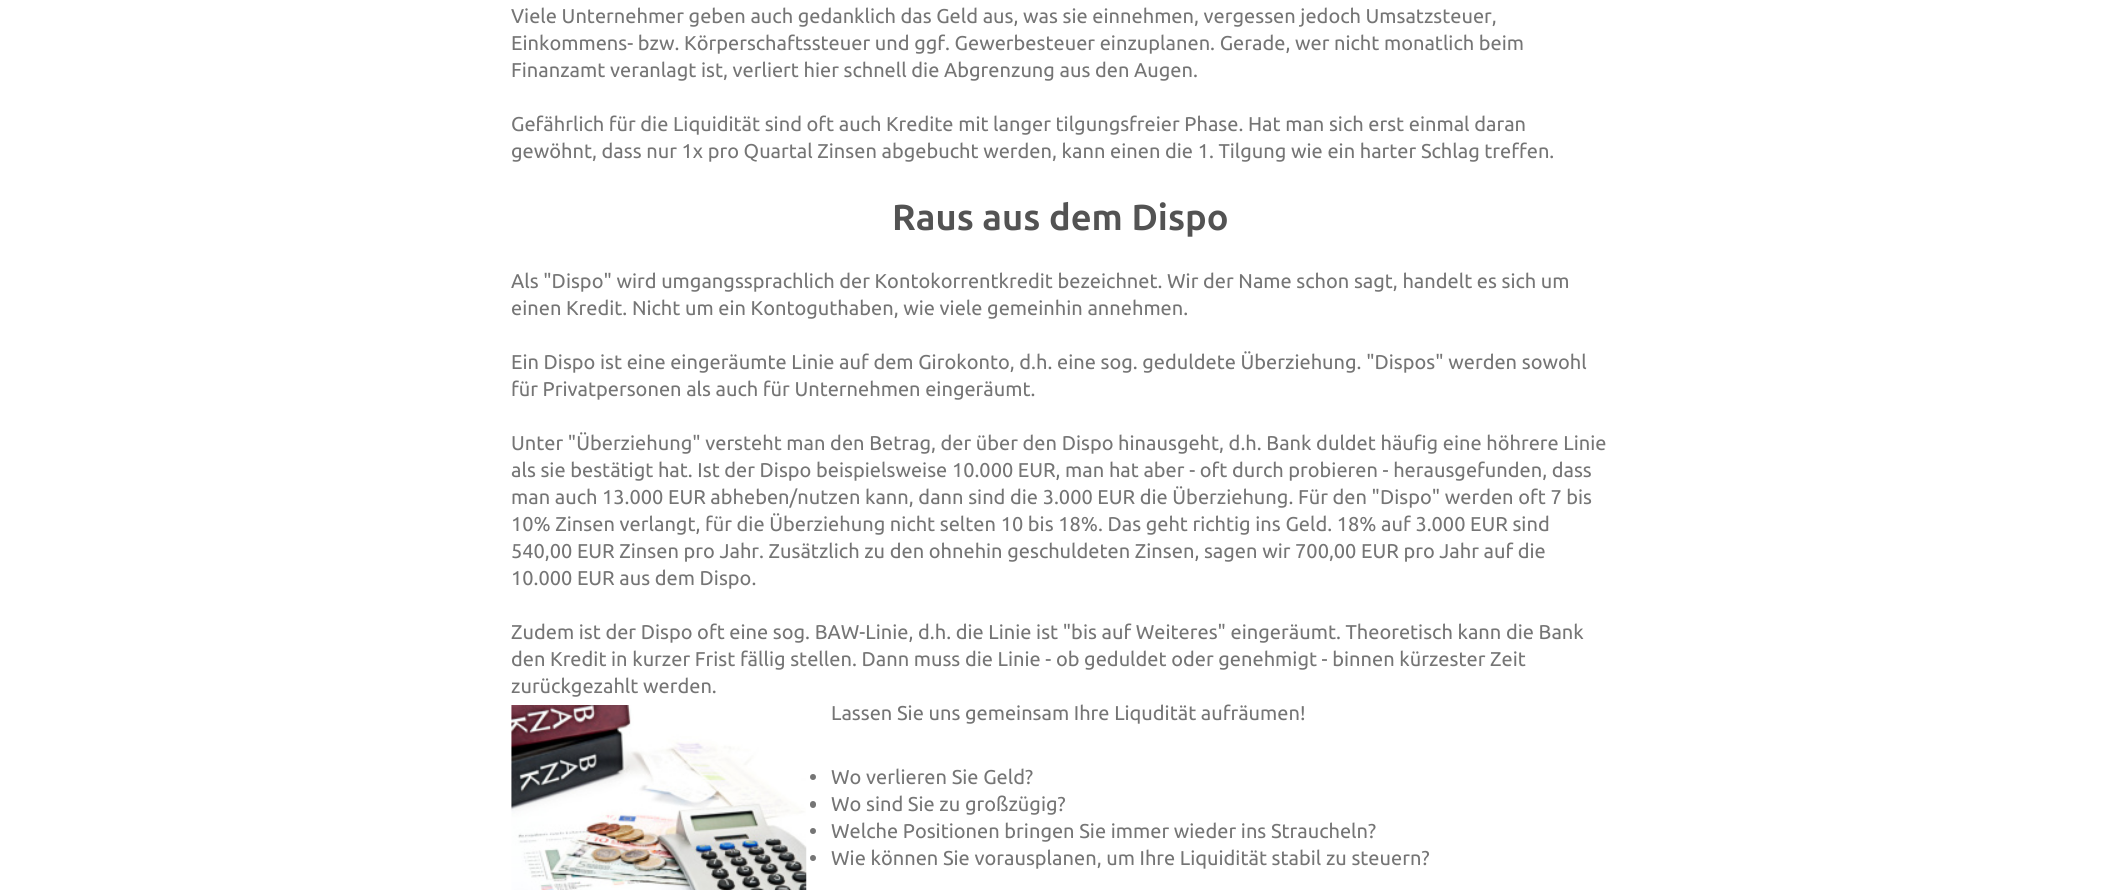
import math
import cairocffi as cairo

surface = cairo.ImageSurface(cairo.FORMAT_RGB24, 2121, 890)
cr = cairo.Context(surface)
options = cairo.FontOptions()
options.set_hint_metrics(cairo.HINT_METRICS_OFF)
options.set_hint_style(cairo.HINT_STYLE_NONE)
cr.set_font_options(options)
cr.set_miter_limit(4)


def use_color(code):
    cr.set_source_rgb(*(v / 255 for v in bytes.fromhex(code[-6:])))


def round_rect(x, y, w, h, r):
    cr.new_sub_path()
    for i, (u, v) in enumerate([(x + w - r, y + h - r), (x + r, y + h - r), (x + r, y + r), (x + w - r, y + r)]):
        cr.arc(u, v, r, i * math.pi / 2, (i + 1) * math.pi / 2)
    cr.close_path()


def picture(path, x, y, w, h):
    cr.save()
    cr.set_source_surface(cairo.ImageSurface.create_from_png(path), x, y)
    cr.rectangle(x, y, w, h)
    cr.fill()
    cr.restore()


use_color("#ffffff")
cr.paint()
cr.select_font_face("Ubuntu")
cr.set_font_size(20)
use_color("#757575")
cr.move_to(511, 23)
cr.show_text("Viele Unternehmer geben auch gedanklich das Geld aus, was sie einnehmen, vergessen jedoch Umsatzsteuer,")
cr.move_to(511, 50)
cr.show_text("Einkommens- bzw. Körperschaftssteuer und ggf. Gewerbesteuer einzuplanen. Gerade, wer nicht monatlich beim")
cr.move_to(511, 77)
cr.show_text("Finanzamt veranlagt ist, verliert hier schnell die Abgrenzung aus den Augen.")
cr.move_to(511, 131)
cr.show_text("Gefährlich für die Liquidität sind oft auch Kredite mit langer tilgungsfreier Phase. Hat man sich erst einmal daran")
cr.move_to(511, 158)
cr.show_text("gewöhnt, dass nur 1x pro Quartal Zinsen abgebucht werden, kann einen die 1. Tilgung wie ein harter Schlag treffen.")
cr.select_font_face("Ubuntu", cairo.FONT_SLANT_NORMAL, cairo.FONT_WEIGHT_BOLD)
cr.set_font_size(36.25)
use_color("#535353")
cr.move_to(892, 230)
cr.show_text("Raus aus dem Dispo")
cr.select_font_face("Ubuntu")
cr.set_font_size(20)
use_color("#757575")
cr.move_to(511, 288)
cr.show_text("Als \"Dispo\" wird umgangssprachlich der Kontokorrentkredit bezeichnet. Wir der Name schon sagt, handelt es sich um")
cr.move_to(511, 315)
cr.show_text("einen Kredit. Nicht um ein Kontoguthaben, wie viele gemeinhin annehmen.")
cr.move_to(511, 369)
cr.show_text("Ein Dispo ist eine eingeräumte Linie auf dem Girokonto, d.h. eine sog. geduldete Überziehung. \"Dispos\" werden sowohl")
cr.move_to(511, 396)
cr.show_text("für Privatpersonen als auch für Unternehmen eingeräumt.")
cr.move_to(511, 450)
cr.show_text("Unter \"Überziehung\" versteht man den Betrag, der über den Dispo hinausgeht, d.h. Bank duldet häufig eine höhrere Linie")
cr.move_to(511, 477)
cr.show_text("als sie bestätigt hat. Ist der Dispo beispielsweise 10.000 EUR, man hat aber - oft durch probieren - herausgefunden, dass")
cr.move_to(511, 504)
cr.show_text("man auch 13.000 EUR abheben/nutzen kann, dann sind die 3.000 EUR die Überziehung. Für den \"Dispo\" werden oft 7 bis")
cr.move_to(511, 531)
cr.show_text("10% Zinsen verlangt, für die Überziehung nicht selten 10 bis 18%. Das geht richtig ins Geld. 18% auf 3.000 EUR sind")
cr.move_to(511, 558)
cr.show_text("540,00 EUR Zinsen pro Jahr. Zusätzlich zu den ohnehin geschuldeten Zinsen, sagen wir 700,00 EUR pro Jahr auf die")
cr.move_to(511, 585)
cr.show_text("10.000 EUR aus dem Dispo.")
cr.move_to(511, 639)
cr.show_text("Zudem ist der Dispo oft eine sog. BAW-Linie, d.h. die Linie ist \"bis auf Weiteres\" eingeräumt. Theoretisch kann die Bank")
cr.move_to(511, 666)
cr.show_text("den Kredit in kurzer Frist fällig stellen. Dann muss die Linie - ob geduldet oder genehmigt - binnen kürzester Zeit")
cr.move_to(511, 693)
cr.show_text("zurückgezahlt werden.")
picture("img1.png", 511, 705, 296, 185)
cr.move_to(831, 720)
cr.show_text("Lassen Sie uns gemeinsam Ihre Liqudität aufräumen!")
cr.new_path()
cr.arc(813, 777, 3, 0, 2 * math.pi)
cr.fill()
cr.move_to(831, 784)
cr.show_text("Wo verlieren Sie Geld?")
round_rect(810, 801, 6, 7, 3)
cr.fill()
cr.move_to(831, 811)
cr.show_text("Wo sind Sie zu großzügig?")
cr.new_path()
cr.arc(813, 831, 3, 0, 2 * math.pi)
cr.fill()
cr.move_to(831, 838)
cr.show_text("Welche Positionen bringen Sie immer wieder ins Straucheln?")
cr.new_path()
cr.arc(813, 858, 3, 0, 2 * math.pi)
cr.fill()
cr.move_to(831, 865)
cr.show_text("Wie können Sie vorausplanen, um Ihre Liquidität stabil zu steuern?")
surface.write_to_png("result.png")
